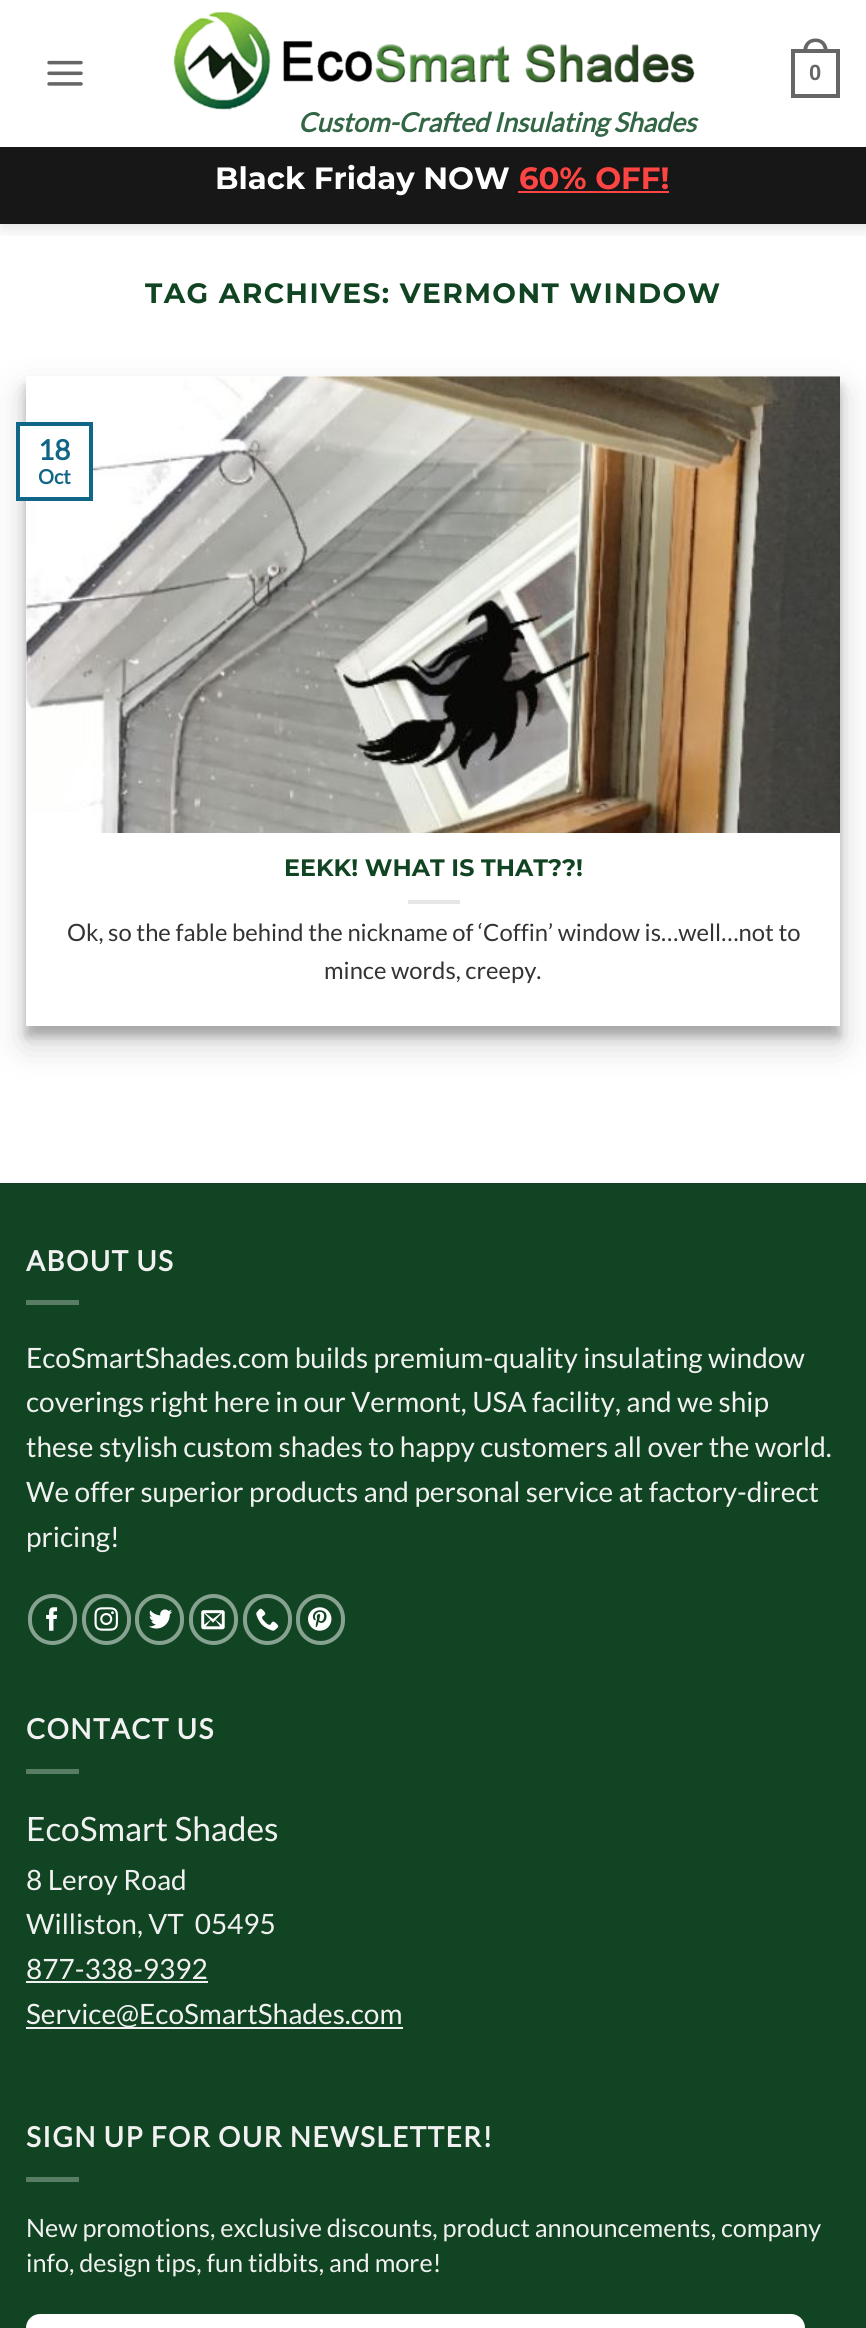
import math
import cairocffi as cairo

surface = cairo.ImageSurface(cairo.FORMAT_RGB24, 866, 2328)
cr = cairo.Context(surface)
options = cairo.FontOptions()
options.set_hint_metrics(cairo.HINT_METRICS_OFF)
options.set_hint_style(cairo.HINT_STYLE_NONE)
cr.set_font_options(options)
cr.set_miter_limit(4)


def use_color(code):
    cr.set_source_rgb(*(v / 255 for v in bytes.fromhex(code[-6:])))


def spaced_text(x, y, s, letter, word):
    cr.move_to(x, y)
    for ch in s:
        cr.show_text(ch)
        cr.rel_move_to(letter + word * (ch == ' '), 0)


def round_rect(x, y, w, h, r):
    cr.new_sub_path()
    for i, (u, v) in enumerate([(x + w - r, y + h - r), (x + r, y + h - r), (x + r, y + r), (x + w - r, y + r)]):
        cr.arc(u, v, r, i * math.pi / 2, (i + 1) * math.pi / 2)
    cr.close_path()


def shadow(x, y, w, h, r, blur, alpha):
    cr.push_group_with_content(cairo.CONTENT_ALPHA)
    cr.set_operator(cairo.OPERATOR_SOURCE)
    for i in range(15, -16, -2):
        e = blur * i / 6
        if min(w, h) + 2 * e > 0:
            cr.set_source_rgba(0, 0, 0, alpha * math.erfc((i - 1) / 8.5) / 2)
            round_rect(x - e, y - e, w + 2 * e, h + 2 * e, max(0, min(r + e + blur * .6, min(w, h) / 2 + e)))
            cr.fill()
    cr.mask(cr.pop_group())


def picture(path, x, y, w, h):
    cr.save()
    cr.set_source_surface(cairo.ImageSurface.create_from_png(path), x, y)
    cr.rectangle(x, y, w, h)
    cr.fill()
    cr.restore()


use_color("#ffffff")
cr.paint()
cr.save()
cr.rectangle(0, 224, 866, 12)
cr.clip()
use_color("#000000")
shadow(2, 2, 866, 224, 0, 9, 0.15)
cr.restore()
picture("img1.png", 47, 60, 36, 26)
cr.rectangle(793, 51, 45, 45)
use_color("#666666")
cr.set_line_width(4)
cr.stroke()
cr.set_fill_rule(cairo.FILL_RULE_EVEN_ODD)
cr.new_path()
cr.move_to(815.5, 38.5)
cr.curve_to(824, 38.5, 828, 45, 828, 52.5)
cr.line_to(803, 52.5)
cr.curve_to(803, 45, 807, 38.5, 815.5, 38.5)
cr.close_path()
cr.move_to(815.5, 42)
cr.curve_to(822, 42, 824, 47, 824, 52.5)
cr.line_to(807, 52.5)
cr.curve_to(807, 47, 809, 42, 815.5, 42)
cr.close_path()
cr.fill()
cr.select_font_face("Liberation Sans", cairo.FONT_SLANT_NORMAL, cairo.FONT_WEIGHT_BOLD)
cr.set_font_size(22)
cr.move_to(809, 80)
cr.show_text("0")
picture("img2.png", 173, 11, 522, 99)
cr.select_font_face("Lato", cairo.FONT_SLANT_ITALIC, cairo.FONT_WEIGHT_BOLD)
cr.set_font_size(26.6)
use_color("#336644")
cr.move_to(298, 132)
cr.show_text("Custom-Crafted Insulating Shades")
use_color("#171717")
cr.rectangle(0, 147, 866, 77)
cr.fill()
cr.select_font_face("Montserrat", cairo.FONT_SLANT_NORMAL, cairo.FONT_WEIGHT_BOLD)
cr.set_font_size(30.75)
use_color("#ffffff")
cr.move_to(215, 189)
cr.show_text("Black Friday NOW")
use_color("#ff4444")
cr.move_to(519, 189)
cr.show_text("60% OFF!")
cr.rectangle(518, 191, 151, 2)
cr.fill()
cr.set_font_size(28)
use_color("#114422")
spaced_text(145, 303, "TAG ARCHIVES: VERMONT WINDOW", 1.4, 0)
use_color("#000000")
shadow(26, 387, 814, 649, 0, 5, 0.22)
shadow(26, 394, 814, 649, 0, 17.5, 0.19)
use_color("#ffffff")
cr.rectangle(26, 376, 814, 650)
cr.fill()
picture("img3.png", 26, 376, 814, 457)
cr.rectangle(18, 424, 73, 75)
cr.fill_preserve()
use_color("#116688")
cr.stroke()
cr.select_font_face("Lato", cairo.FONT_SLANT_NORMAL, cairo.FONT_WEIGHT_BOLD)
cr.move_to(38, 460)
cr.show_text("18")
cr.set_font_size(20)
cr.move_to(38, 484)
cr.show_text("Oct")
cr.select_font_face("Montserrat", cairo.FONT_SLANT_NORMAL, cairo.FONT_WEIGHT_BOLD)
cr.set_font_size(23.8)
use_color("#114422")
cr.move_to(284, 876)
cr.show_text("EEKK! WHAT IS THAT??!")
use_color("#e6e6e6")
cr.rectangle(408, 900, 52, 4)
cr.fill()
cr.select_font_face("Lato")
use_color("#333333")
cr.move_to(67, 941)
cr.show_text("Ok, so the fable behind the nickname of ‘Coffin’ window is…well…not to")
cr.move_to(324, 979)
cr.show_text("mince words, creepy.")
use_color("#114422")
cr.rectangle(0, 1185, 866, 1143)
cr.fill()
use_color("#104120")
cr.rectangle(0, 1183, 866, 2)
cr.fill()
cr.select_font_face("Lato", cairo.FONT_SLANT_NORMAL, cairo.FONT_WEIGHT_BOLD)
cr.set_font_size(28)
use_color("#f1f1f1")
spaced_text(26, 1271, "ABOUT US", 1.4, 0)
use_color("#587c64")
cr.rectangle(26, 1300, 53, 5)
cr.fill()
cr.select_font_face("Lato")
use_color("#f1f1f1")
cr.move_to(26, 1368)
cr.show_text("EcoSmartShades.com builds premium-quality insulating window")
cr.move_to(26, 1412)
cr.show_text("coverings right here in our Vermont, USA facility, and we ship")
cr.move_to(26, 1457)
cr.show_text("these stylish custom shades to happy customers all over the world.")
cr.move_to(26, 1502)
cr.show_text("We offer superior products and personal service at factory-direct")
cr.move_to(26, 1547)
cr.show_text("pricing!")
round_rect(30, 1596, 45, 47, 22.5)
use_color("#88a291")
cr.stroke()
picture("img4.png", 46, 1607, 12, 24)
round_rect(84, 1596, 45, 47, 22.5)
cr.stroke()
picture("img5.png", 94, 1607, 24, 24)
round_rect(137, 1596, 45, 47, 22.5)
cr.stroke()
picture("img6.png", 149, 1609, 23, 20)
round_rect(191, 1596, 45, 47, 22.5)
cr.stroke()
picture("img7.png", 201, 1610, 24, 20)
round_rect(245, 1596, 45, 47, 22.5)
cr.stroke()
picture("img8.png", 256, 1608, 23, 23)
round_rect(298, 1596, 45, 47, 22.5)
cr.stroke()
picture("img9.png", 308, 1607, 24, 24)
cr.select_font_face("Lato", cairo.FONT_SLANT_NORMAL, cairo.FONT_WEIGHT_BOLD)
use_color("#f1f1f1")
spaced_text(26, 1739, "CONTACT US", 1.4, 0)
use_color("#587c64")
cr.rectangle(26, 1769, 53, 5)
cr.fill()
cr.select_font_face("Lato")
cr.set_font_size(33.5)
use_color("#f1f1f1")
cr.move_to(26, 1841)
cr.show_text("EcoSmart Shades")
cr.set_font_size(28)
cr.move_to(26, 1890)
cr.show_text("8 Leroy Road")
cr.move_to(26, 1934)
cr.show_text("Williston, VT  05495")
cr.move_to(26, 1979)
cr.show_text("877-338-9392")
cr.rectangle(26, 1981, 182, 2)
cr.fill()
cr.rectangle(26, 2027, 377, 2)
cr.fill()
cr.move_to(26, 2024)
cr.show_text("Service@EcoSmartShades.com")
cr.select_font_face("Lato", cairo.FONT_SLANT_NORMAL, cairo.FONT_WEIGHT_BOLD)
spaced_text(26, 2147, "SIGN UP FOR OUR NEWSLETTER!", 1.4, 0)
use_color("#587c64")
cr.rectangle(26, 2177, 53, 5)
cr.fill()
cr.select_font_face("Lato")
cr.set_font_size(25.2)
use_color("#f1f1f1")
cr.move_to(26, 2237)
cr.show_text("New promotions, exclusive discounts, product announcements, company")
cr.move_to(26, 2272)
cr.show_text("info, design tips, fun tidbits, and more!")
use_color("#ffffff")
round_rect(26, 2314, 779, 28, 14)
cr.fill()
round_rect(28, 2316, 775, 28, 12)
cr.set_source_rgba(1, 1, 1, 0.1)
cr.stroke()
surface.write_to_png("result.png")
